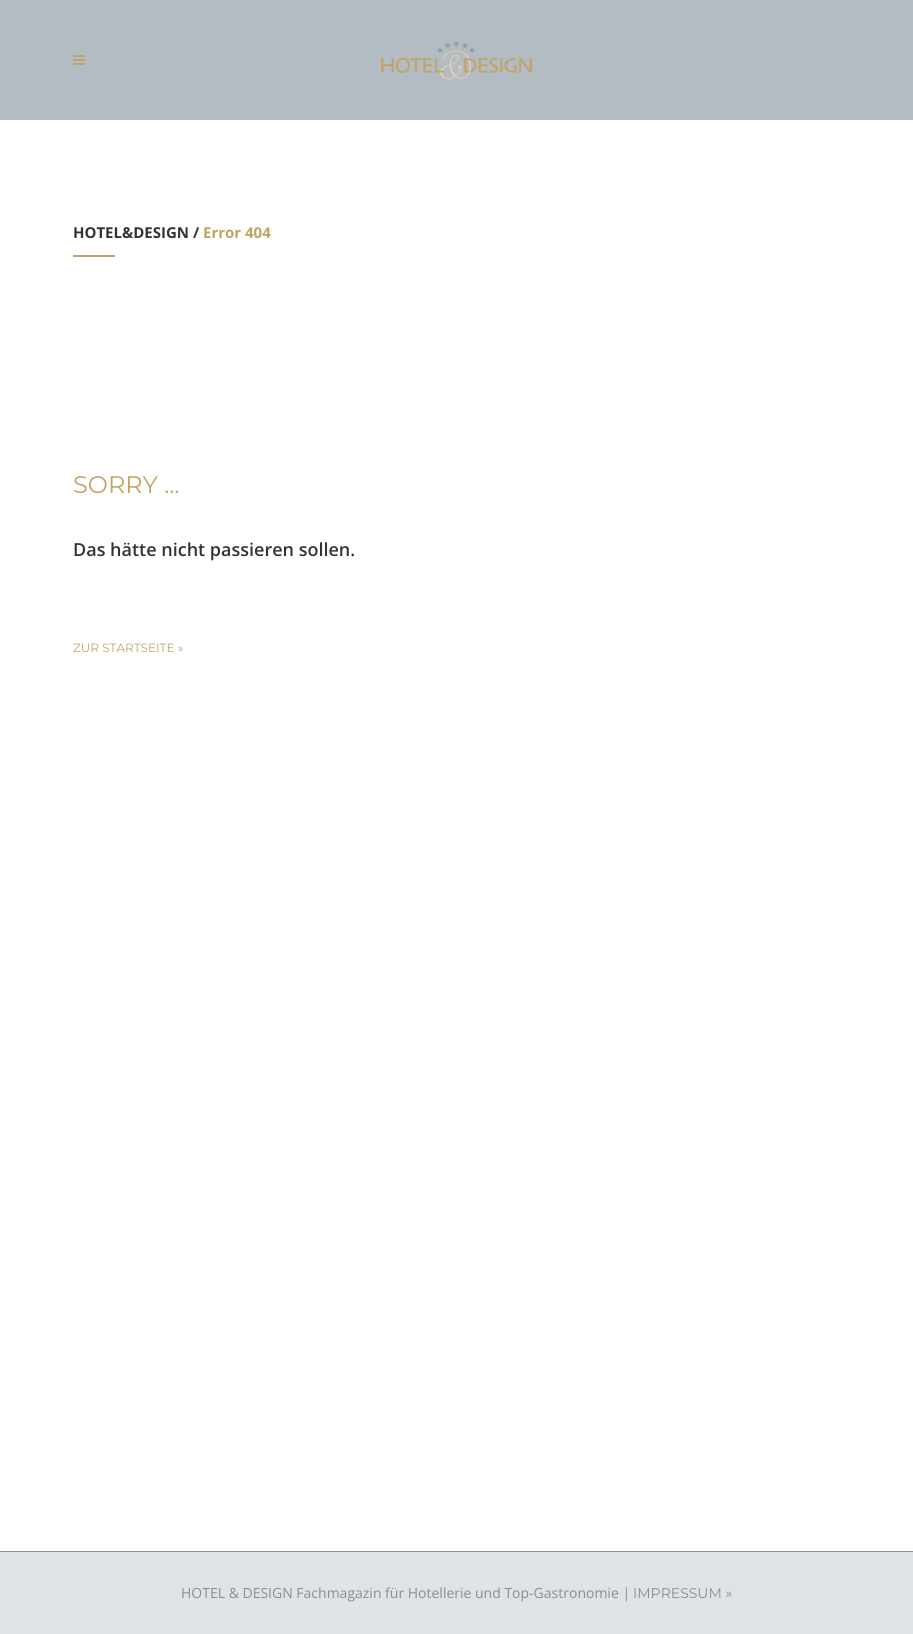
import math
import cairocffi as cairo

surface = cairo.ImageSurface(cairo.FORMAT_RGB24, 913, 1634)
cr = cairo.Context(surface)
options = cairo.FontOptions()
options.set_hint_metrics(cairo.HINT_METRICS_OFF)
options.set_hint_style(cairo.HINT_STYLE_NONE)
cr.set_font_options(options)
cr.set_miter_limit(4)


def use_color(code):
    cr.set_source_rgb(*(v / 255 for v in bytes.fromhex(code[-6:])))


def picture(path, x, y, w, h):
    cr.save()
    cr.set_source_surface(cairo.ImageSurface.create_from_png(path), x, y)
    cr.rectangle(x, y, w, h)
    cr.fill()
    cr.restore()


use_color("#ffffff")
cr.paint()
use_color("#b2bcc2")
cr.rectangle(0, 0, 913, 120)
cr.fill()
picture("img1.png", 73, 55, 12, 10)
picture("img2.png", 381, 41, 152, 39)
cr.select_font_face("Open Sans", cairo.FONT_SLANT_NORMAL, cairo.FONT_WEIGHT_BOLD)
cr.set_font_size(15)
use_color("#323333")
cr.move_to(73, 238)
cr.show_text("HOTEL&DESIGN /")
use_color("#c0a465")
cr.move_to(203, 238)
cr.show_text("Error 404")
cr.rectangle(73, 255, 42, 2)
cr.fill()
cr.select_font_face("Montserrat Thin")
cr.set_font_size(24)
cr.move_to(73, 493)
cr.show_text("SORRY ...")
cr.select_font_face("Open Sans SemiBold")
cr.set_font_size(18)
use_color("#323333")
cr.move_to(73, 556)
cr.show_text("Das hätte nicht passieren sollen.")
cr.select_font_face("Montserrat Thin")
cr.set_font_size(12)
use_color("#c0a465")
cr.move_to(73, 652)
cr.show_text("ZUR STARTSEITE »")
use_color("#7f9099")
cr.rectangle(0, 1551, 913, 1)
cr.fill()
use_color("#dfe3e6")
cr.rectangle(0, 1552, 913, 82)
cr.fill()
cr.select_font_face("Open Sans")
cr.set_font_size(14)
use_color("#7f9099")
cr.move_to(181, 1598)
cr.show_text("HOTEL & DESIGN Fachmagazin für Hotellerie und Top-Gastronomie |")
cr.select_font_face("Montserrat Thin")
cr.move_to(633, 1598)
cr.show_text("IMPRESSUM »")
surface.write_to_png("result.png")
